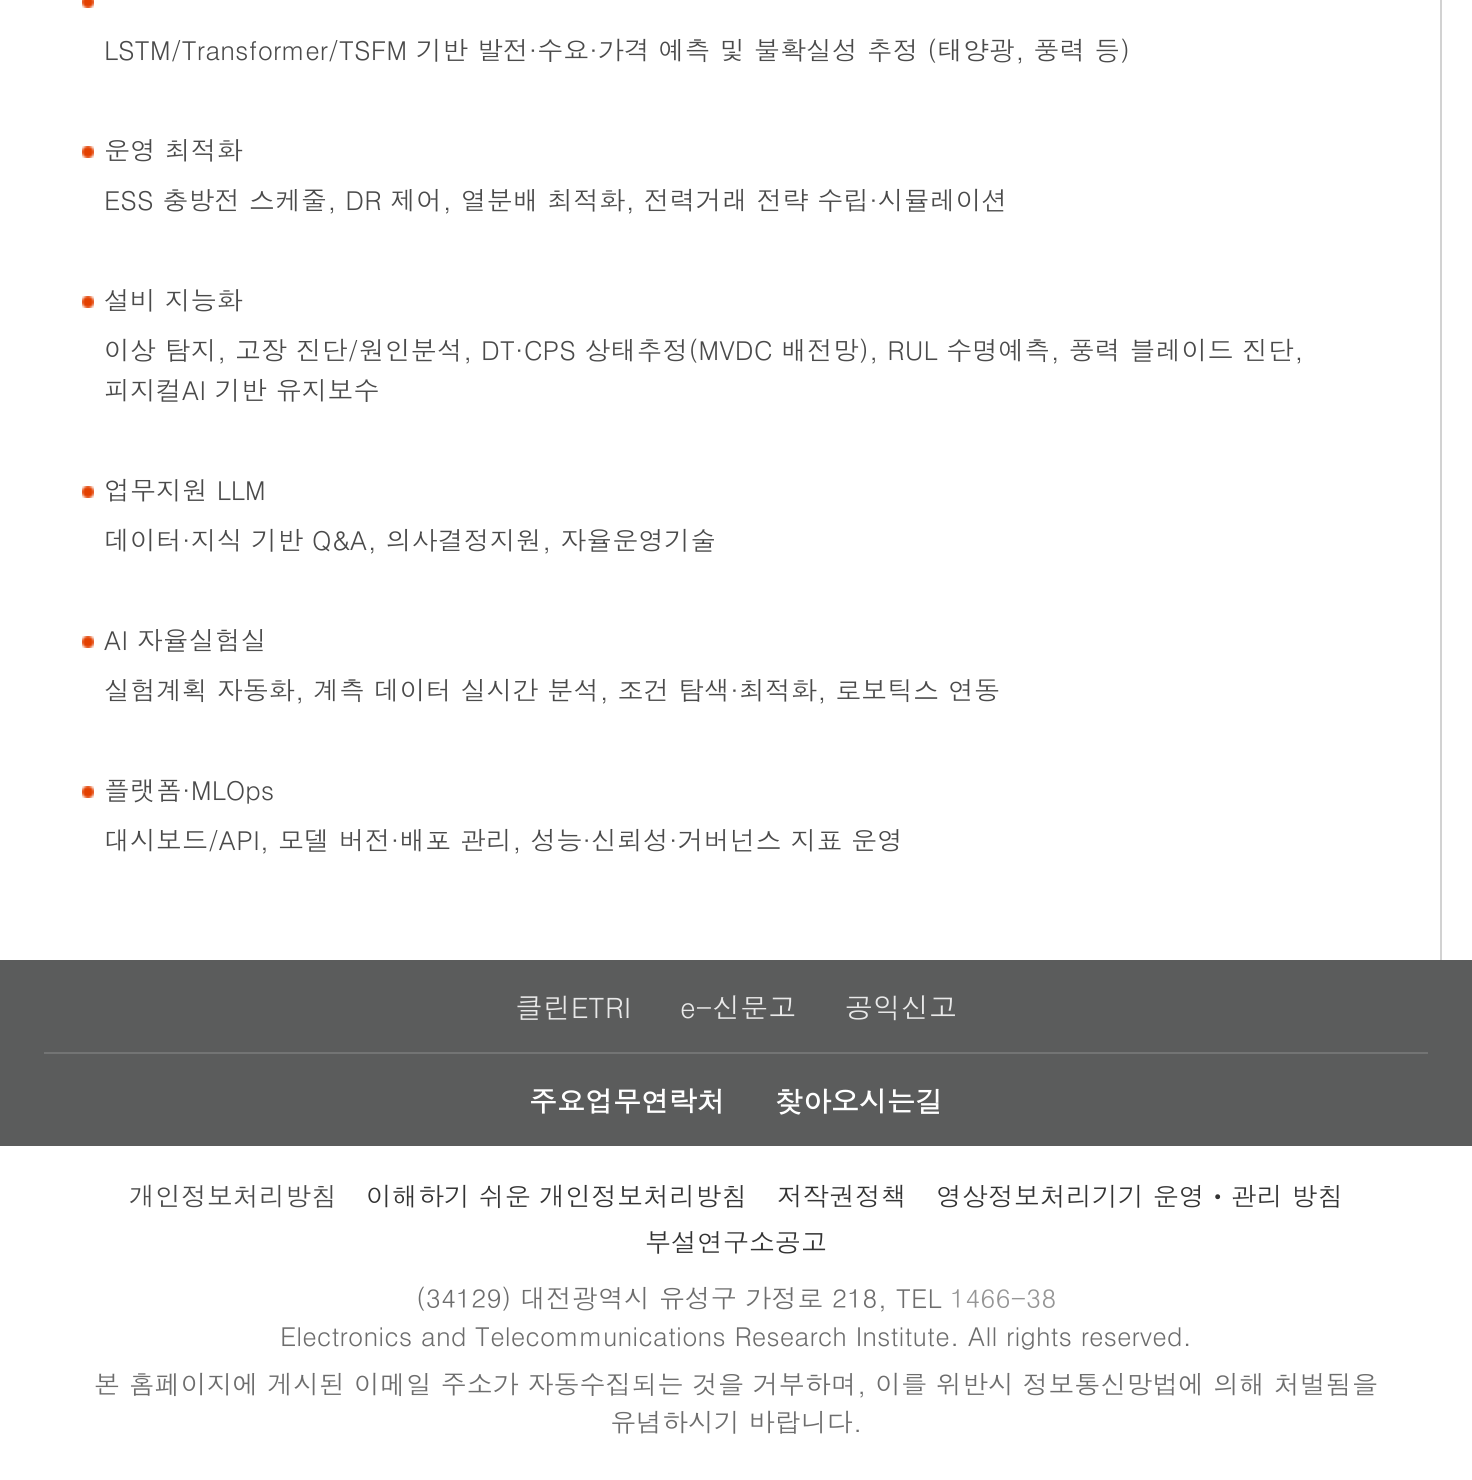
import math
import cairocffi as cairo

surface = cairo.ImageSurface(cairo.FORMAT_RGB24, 1472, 1480)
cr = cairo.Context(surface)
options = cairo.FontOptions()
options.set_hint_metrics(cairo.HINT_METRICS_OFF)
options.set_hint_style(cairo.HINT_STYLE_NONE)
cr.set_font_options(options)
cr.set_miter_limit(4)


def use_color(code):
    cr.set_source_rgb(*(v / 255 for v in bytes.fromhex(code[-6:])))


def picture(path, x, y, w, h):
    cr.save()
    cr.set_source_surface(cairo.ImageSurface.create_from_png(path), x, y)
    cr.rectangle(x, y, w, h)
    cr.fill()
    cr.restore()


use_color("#ffffff")
cr.paint()
use_color("#d2d2d2")
cr.rectangle(1440, 0, 2, 960)
cr.fill()
picture("img1.png", 82, 0, 12, 8)
cr.select_font_face("Dotum")
cr.set_font_size(26)
use_color("#4a4a4a")
cr.move_to(104, 60)
cr.show_text("LSTM/Transformer/TSFM 기반 발전·수요·가격 예측 및 불확실성 추정 (태양광, 풍력 등)")
picture("img2.png", 82, 146, 12, 12)
cr.move_to(104, 160)
cr.show_text("운영 최적화")
cr.move_to(104, 210)
cr.show_text("ESS 충방전 스케줄, DR 제어, 열분배 최적화, 전력거래 전략 수립·시뮬레이션")
picture("img2.png", 82, 296, 12, 12)
cr.move_to(104, 310)
cr.show_text("설비 지능화")
cr.move_to(104, 360)
cr.show_text("이상 탐지, 고장 진단/원인분석, DT·CPS 상태추정(MVDC 배전망), RUL 수명예측, 풍력 블레이드 진단,")
cr.move_to(104, 400)
cr.show_text("피지컬AI 기반 유지보수")
picture("img2.png", 82, 486, 12, 12)
cr.move_to(104, 500)
cr.show_text("업무지원 LLM")
cr.move_to(104, 550)
cr.show_text("데이터·지식 기반 Q&A, 의사결정지원, 자율운영기술")
picture("img2.png", 82, 636, 12, 12)
cr.move_to(104, 650)
cr.show_text("AI 자율실험실")
cr.move_to(104, 700)
cr.show_text("실험계획 자동화, 계측 데이터 실시간 분석, 조건 탐색·최적화, 로보틱스 연동")
picture("img2.png", 82, 786, 12, 12)
cr.move_to(104, 800)
cr.show_text("플랫폼·MLOps")
cr.move_to(104, 850)
cr.show_text("대시보드/API, 모델 버전·배포 관리, 성능·신뢰성·거버넌스 지표 운영")
use_color("#5b5c5c")
cr.rectangle(0, 960, 1472, 186)
cr.fill()
cr.set_font_size(28)
use_color("#e9e9e9")
cr.move_to(515, 1018)
cr.show_text("클린ETRI")
cr.move_to(680, 1018)
cr.show_text("e-신문고")
cr.move_to(845, 1018)
cr.show_text("공익신고")
use_color("#737474")
cr.rectangle(44, 1052, 1384, 2)
cr.fill()
cr.select_font_face("Dotum", cairo.FONT_SLANT_NORMAL, cairo.FONT_WEIGHT_BOLD)
use_color("#ffffff")
cr.move_to(529, 1112)
cr.show_text("주요업무연락처")
cr.move_to(775, 1112)
cr.show_text("찾아오시는길")
cr.select_font_face("Dotum")
cr.set_font_size(26)
use_color("#4a4a4a")
cr.move_to(129, 1206)
cr.show_text("개인정보처리방침")
use_color("#333333")
cr.move_to(366, 1206)
cr.show_text("이해하기 쉬운 개인정보처리방침")
cr.move_to(777, 1206)
cr.show_text("저작권정책")
cr.move_to(936, 1206)
cr.show_text("영상정보처리기기 운영ㆍ관리 방침")
cr.move_to(645, 1252)
cr.show_text("부설연구소공고")
use_color("#6d6d6d")
cr.move_to(416, 1308)
cr.show_text("(34129) 대전광역시 유성구 가정로 218, TEL")
use_color("#959595")
cr.move_to(950, 1308)
cr.show_text("1466-38")
use_color("#6d6d6d")
cr.move_to(280, 1346)
cr.show_text("Electronics and Telecommunications Research Institute. All rights reserved.")
cr.move_to(94, 1394)
cr.show_text("본 홈페이지에 게시된 이메일 주소가 자동수집되는 것을 거부하며, 이를 위반시 정보통신망법에 의해 처벌됨을")
cr.move_to(610, 1432)
cr.show_text("유념하시기 바랍니다.")
surface.write_to_png("result.png")
